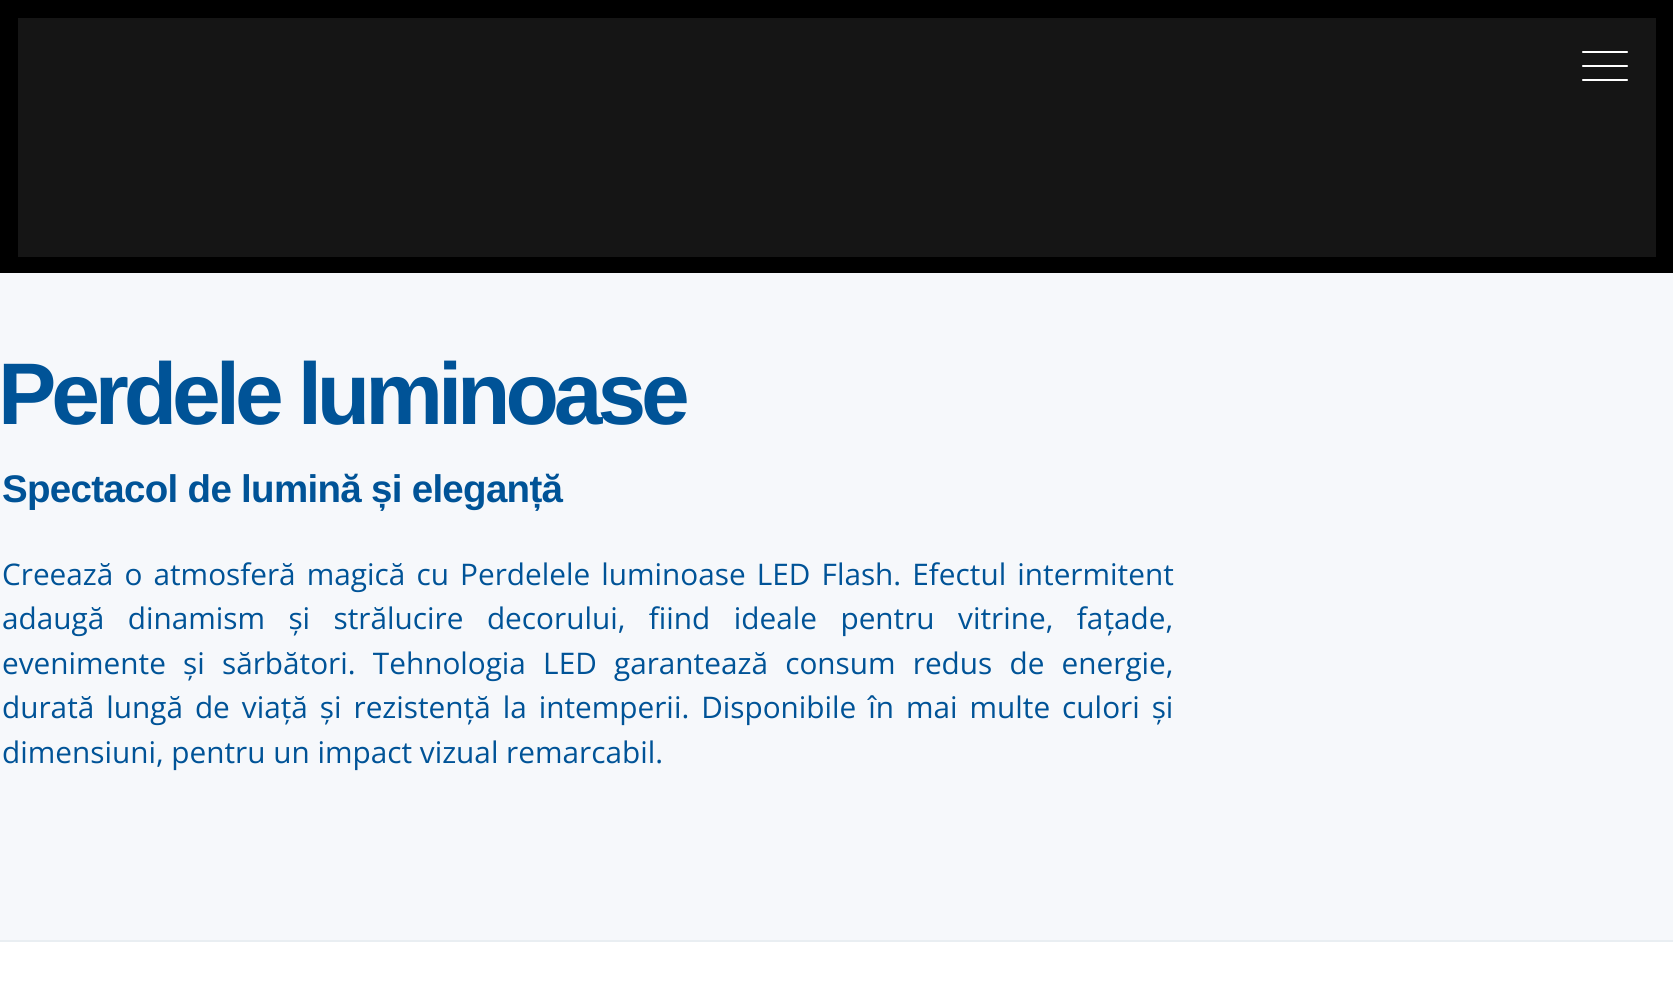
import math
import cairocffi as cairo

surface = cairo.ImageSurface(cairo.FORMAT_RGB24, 1673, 990)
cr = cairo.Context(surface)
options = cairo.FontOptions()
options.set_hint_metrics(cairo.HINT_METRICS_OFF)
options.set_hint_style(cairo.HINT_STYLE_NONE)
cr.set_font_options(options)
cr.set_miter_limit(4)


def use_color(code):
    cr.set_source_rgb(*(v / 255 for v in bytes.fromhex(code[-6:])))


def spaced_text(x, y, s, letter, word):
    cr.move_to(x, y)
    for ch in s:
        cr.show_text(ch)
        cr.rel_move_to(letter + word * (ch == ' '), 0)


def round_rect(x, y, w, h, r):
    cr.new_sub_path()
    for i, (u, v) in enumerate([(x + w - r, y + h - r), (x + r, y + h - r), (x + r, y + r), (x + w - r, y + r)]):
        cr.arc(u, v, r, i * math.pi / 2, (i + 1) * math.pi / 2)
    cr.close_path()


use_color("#ffffff")
cr.paint()
use_color("#000000")
cr.rectangle(0, 0, 1673, 273)
cr.fill()
use_color("#151515")
cr.rectangle(18, 18, 1638, 239)
cr.fill()
use_color("#ffffff")
round_rect(1582, 65, 46, 2, 1)
cr.fill()
round_rect(1582, 51, 46, 2, 1)
cr.fill()
round_rect(1582, 79, 46, 2, 1)
cr.fill()
use_color("#f6f8fb")
cr.rectangle(0, 273, 1673, 667)
cr.fill()
use_color("#e9eef2")
cr.rectangle(0, 940, 1673, 2)
cr.fill()
cr.select_font_face("Liberation Sans", cairo.FONT_SLANT_NORMAL, cairo.FONT_WEIGHT_BOLD)
cr.set_font_size(87.5)
use_color("#005397")
spaced_text(-2, 424, "Perdele luminoase", -5.1, 0)
cr.set_font_size(38.5)
spaced_text(2, 502, "Spectacol de lumină și eleganță", -0.7, 0)
cr.select_font_face("Open Sans")
cr.set_font_size(29.75)
spaced_text(2, 585, "Creează o atmosferă magică cu Perdelele luminoase LED Flash. Efectul intermitent", 0, 3.4)
spaced_text(2, 629, "adaugă dinamism și strălucire decorului, fiind ideale pentru vitrine, fațade,", 0, 15.75)
spaced_text(2, 674, "evenimente și sărbători. Tehnologia LED garantează consum redus de energie,", 0, 9.5)
spaced_text(2, 718, "durată lungă de viață și rezistență la intemperii. Disponibile în mai multe culori și", 0, 4.25)
cr.move_to(2, 763)
cr.show_text("dimensiuni, pentru un impact vizual remarcabil.")
surface.write_to_png("result.png")
